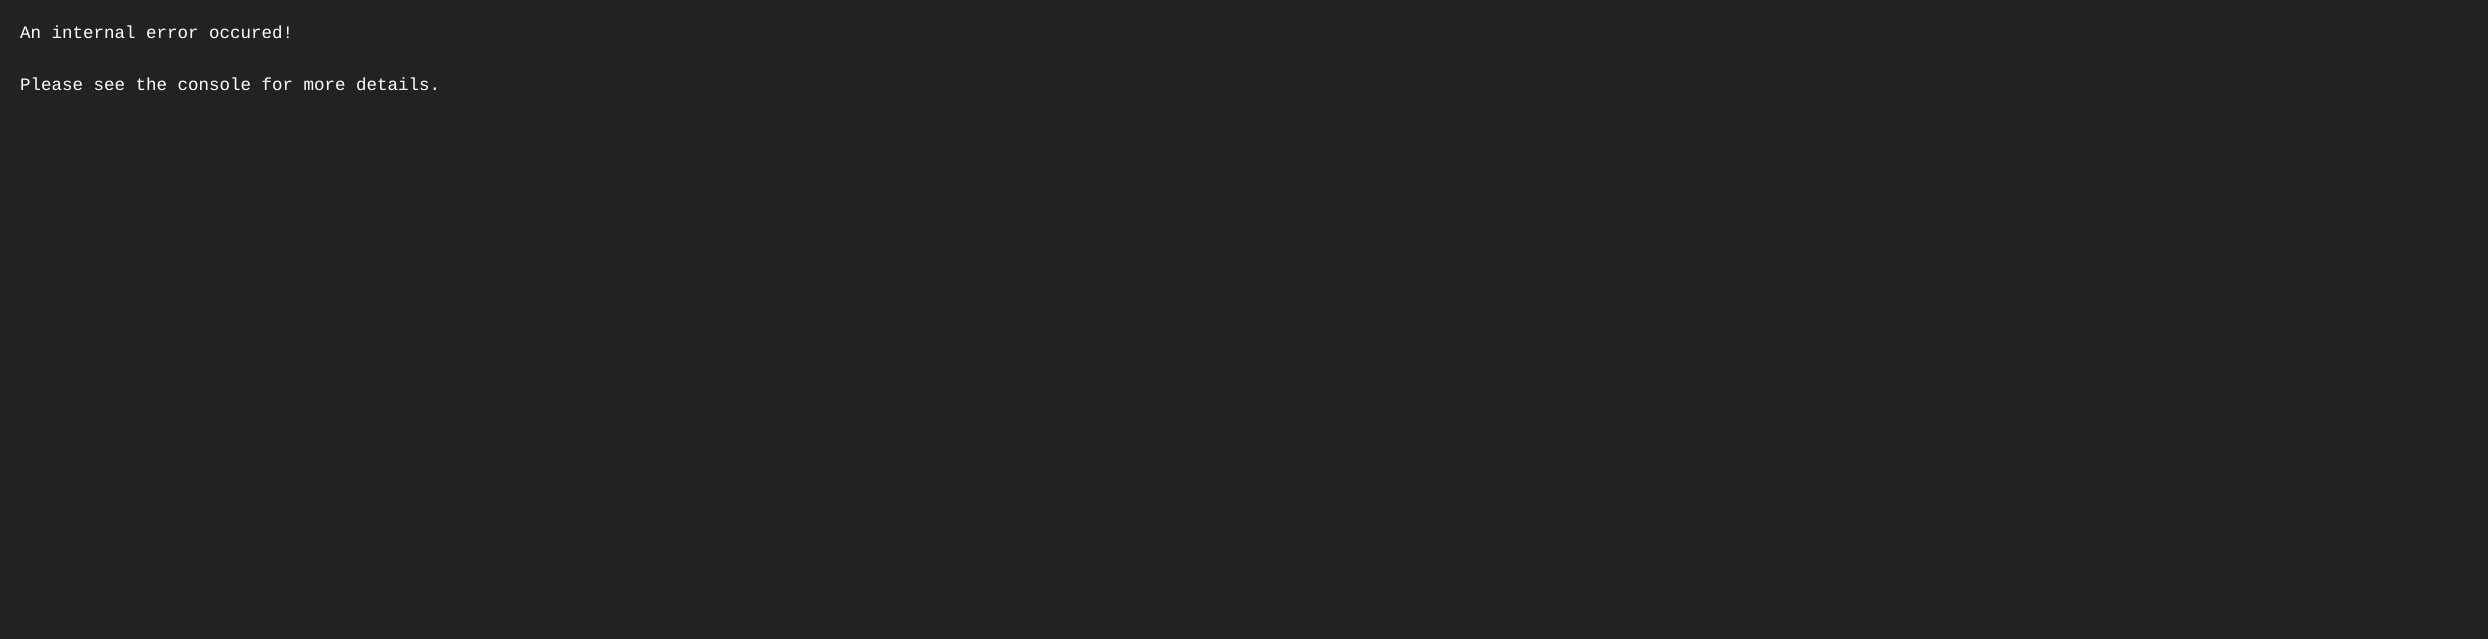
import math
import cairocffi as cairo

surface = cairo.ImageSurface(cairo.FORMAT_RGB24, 2488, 639)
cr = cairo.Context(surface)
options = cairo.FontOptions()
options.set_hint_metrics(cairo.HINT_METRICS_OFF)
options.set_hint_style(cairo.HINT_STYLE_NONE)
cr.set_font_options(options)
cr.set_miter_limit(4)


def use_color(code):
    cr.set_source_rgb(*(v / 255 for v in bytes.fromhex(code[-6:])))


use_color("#222222")
cr.paint()
cr.select_font_face("Liberation Mono")
cr.set_font_size(17.5)
use_color("#ffffff")
cr.move_to(20, 38)
cr.show_text("An internal error occured!")
cr.move_to(20, 90)
cr.show_text("Please see the console for more details.")
surface.write_to_png("result.png")
